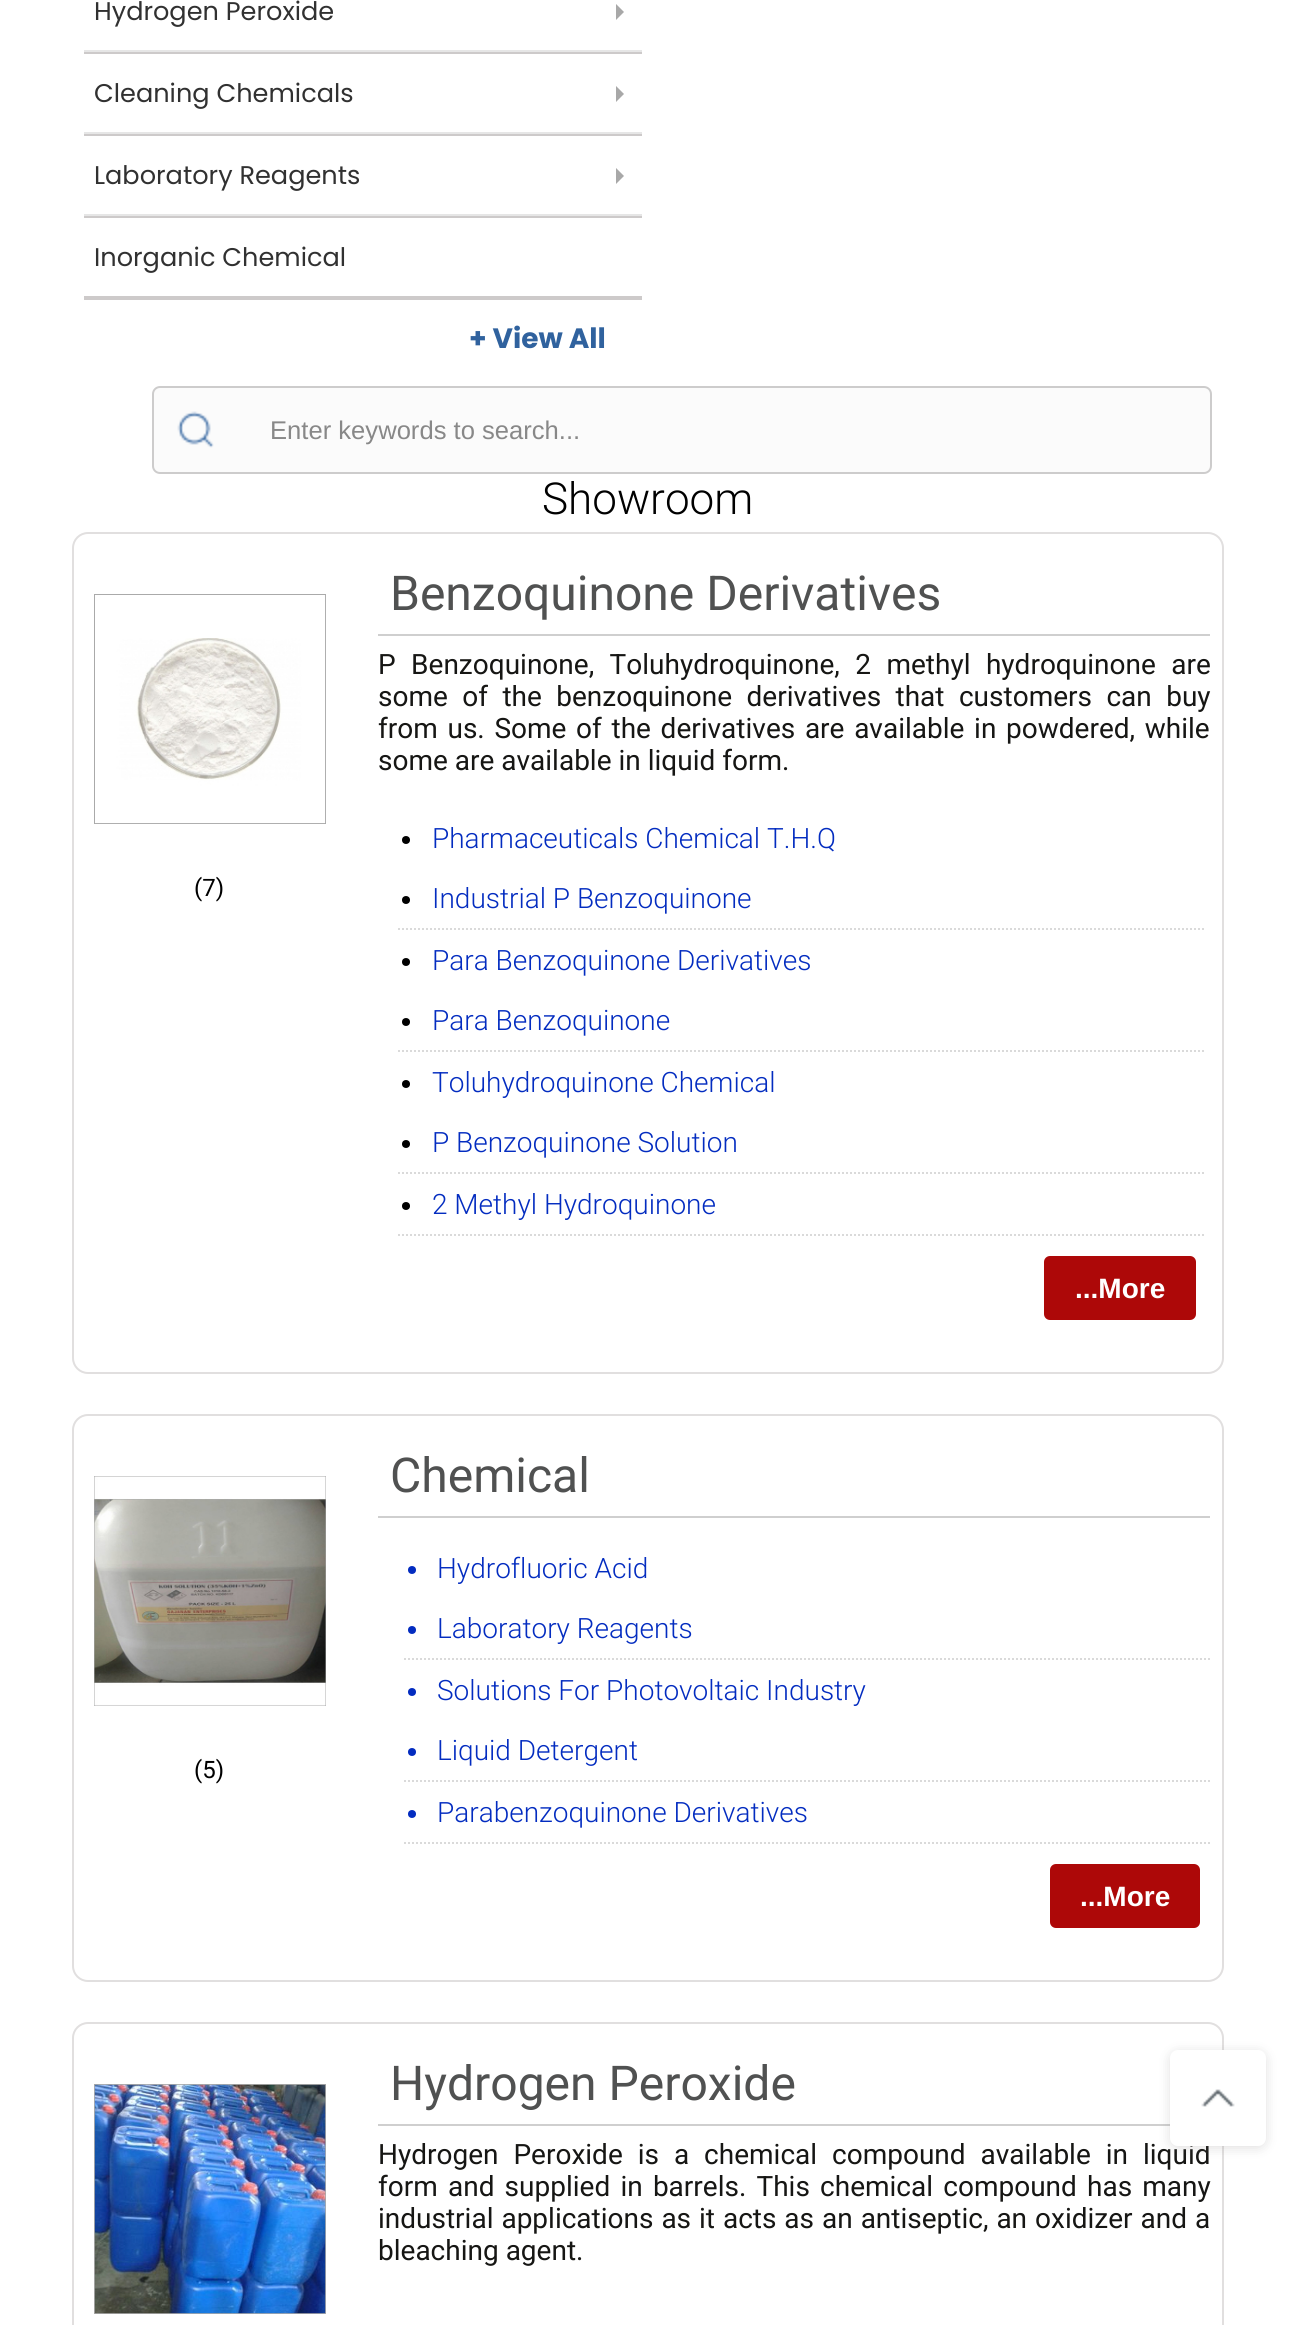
import math
import cairocffi as cairo

surface = cairo.ImageSurface(cairo.FORMAT_RGB24, 1295, 2325)
cr = cairo.Context(surface)
options = cairo.FontOptions()
options.set_hint_metrics(cairo.HINT_METRICS_OFF)
options.set_hint_style(cairo.HINT_STYLE_NONE)
cr.set_font_options(options)
cr.set_miter_limit(4)


def use_color(code):
    cr.set_source_rgb(*(v / 255 for v in bytes.fromhex(code[-6:])))


def spaced_text(x, y, s, letter, word):
    cr.move_to(x, y)
    for ch in s:
        cr.show_text(ch)
        cr.rel_move_to(letter + word * (ch == ' '), 0)


def round_rect(x, y, w, h, r):
    cr.new_sub_path()
    for i, (u, v) in enumerate([(x + w - r, y + h - r), (x + r, y + h - r), (x + r, y + r), (x + w - r, y + r)]):
        cr.arc(u, v, r, i * math.pi / 2, (i + 1) * math.pi / 2)
    cr.close_path()


def shadow(x, y, w, h, r, blur, alpha):
    cr.push_group_with_content(cairo.CONTENT_ALPHA)
    cr.set_operator(cairo.OPERATOR_SOURCE)
    for i in range(15, -16, -2):
        e = blur * i / 6
        if min(w, h) + 2 * e > 0:
            cr.set_source_rgba(0, 0, 0, alpha * math.erfc((i - 1) / 8.5) / 2)
            round_rect(x - e, y - e, w + 2 * e, h + 2 * e, max(0, min(r + e + blur * .6, min(w, h) / 2 + e)))
            cr.fill()
    cr.mask(cr.pop_group())


def picture(path, x, y, w, h):
    cr.save()
    cr.set_source_surface(cairo.ImageSurface.create_from_png(path), x, y)
    cr.rectangle(x, y, w, h)
    cr.fill()
    cr.restore()


use_color("#ffffff")
cr.paint()
use_color("#cdcaca")
cr.rectangle(84, 296, 558, 4)
cr.fill()
cr.rectangle(84, 52, 558, 2)
cr.fill()
use_color("#e6e6e6")
cr.rectangle(84, 50, 558, 2)
cr.fill()
cr.select_font_face("Poppins")
cr.set_font_size(25.6)
use_color("#313131")
cr.move_to(94, 20)
cr.show_text("Hydrogen Peroxide")
use_color("#a8a8a8")
cr.new_path()
cr.move_to(616, 20)
cr.line_to(616, 4)
cr.line_to(624, 12)
cr.close_path()
cr.fill()
use_color("#cdcaca")
cr.rectangle(84, 134, 558, 2)
cr.fill()
use_color("#e6e6e6")
cr.rectangle(84, 132, 558, 2)
cr.fill()
use_color("#313131")
cr.move_to(94, 102)
cr.show_text("Cleaning Chemicals")
use_color("#a8a8a8")
cr.new_path()
cr.move_to(616, 102)
cr.line_to(616, 86)
cr.line_to(624, 94)
cr.close_path()
cr.fill()
use_color("#cdcaca")
cr.rectangle(84, 216, 558, 2)
cr.fill()
use_color("#e6e6e6")
cr.rectangle(84, 214, 558, 2)
cr.fill()
use_color("#313131")
cr.move_to(94, 184)
cr.show_text("Laboratory Reagents")
use_color("#a8a8a8")
cr.new_path()
cr.move_to(616, 184)
cr.line_to(616, 168)
cr.line_to(624, 176)
cr.close_path()
cr.fill()
use_color("#313131")
cr.move_to(94, 266)
cr.show_text("Inorganic Chemical")
cr.select_font_face("Poppins", cairo.FONT_SLANT_NORMAL, cairo.FONT_WEIGHT_BOLD)
cr.set_font_size(28)
use_color("#30629e")
cr.move_to(469, 348)
cr.show_text("+ View All")
use_color("#fbfbfb")
round_rect(153, 387, 1058, 86, 7)
cr.fill_preserve()
use_color("#cdcccc")
cr.stroke()
picture("img1.png", 177, 411, 37, 37)
cr.select_font_face("Liberation Sans")
cr.set_font_size(25.6)
use_color("#888888")
cr.move_to(270, 439)
cr.show_text("Enter keywords to search...")
cr.select_font_face("Roboto Light")
cr.set_font_size(44)
use_color("#000000")
cr.move_to(542, 514)
cr.show_text("Showroom")
round_rect(73, 533, 1150, 840, 15)
use_color("#e1dfdf")
cr.stroke()
use_color("#cfcfcf")
cr.rectangle(378, 634, 832, 2)
cr.fill()
cr.select_font_face("Roboto")
cr.set_font_size(48)
use_color("#505151")
cr.move_to(390, 610)
cr.show_text("Benzoquinone Derivatives")
cr.set_font_size(28)
use_color("#161614")
spaced_text(378, 674, "P Benzoquinone, Toluhydroquinone, 2 methyl hydroquinone are", 0, 8.5)
spaced_text(378, 706, "some of the benzoquinone derivatives that customers can buy", 0, 7.5)
spaced_text(378, 738, "from us. Some of the derivatives are available in powdered, while", 0, 2.75)
cr.move_to(378, 770)
cr.show_text("some are available in liquid form.")
picture("img2.png", 94, 594, 232, 230)
cr.set_font_size(24)
use_color("#000000")
cr.move_to(194, 896)
cr.show_text("(7)")
cr.new_path()
cr.move_to(398, 929)
cr.line_to(1206, 929)
use_color("#dadada")
cr.set_dash([2, 2])
cr.stroke()
use_color("#000000")
cr.arc(406, 840, 4, 0, 2 * math.pi)
cr.fill()
cr.select_font_face("Roboto Light")
cr.set_font_size(28)
use_color("#032cc0")
cr.move_to(432, 848)
cr.show_text("Pharmaceuticals Chemical T.H.Q")
use_color("#000000")
cr.new_path()
cr.arc(406, 900, 4, 0, 2 * math.pi)
cr.fill()
use_color("#032cc0")
cr.move_to(432, 908)
cr.show_text("Industrial P Benzoquinone")
cr.new_path()
cr.move_to(398, 1051)
cr.line_to(1206, 1051)
use_color("#dadada")
cr.stroke()
use_color("#000000")
cr.arc(406, 962, 4, 0, 2 * math.pi)
cr.fill()
use_color("#032cc0")
cr.move_to(432, 970)
cr.show_text("Para Benzoquinone Derivatives")
use_color("#000000")
cr.new_path()
cr.arc(406, 1022, 4, 0, 2 * math.pi)
cr.fill()
use_color("#032cc0")
cr.move_to(432, 1030)
cr.show_text("Para Benzoquinone")
cr.new_path()
cr.move_to(398, 1173)
cr.line_to(1206, 1173)
use_color("#dadada")
cr.stroke()
use_color("#000000")
cr.arc(406, 1084, 4, 0, 2 * math.pi)
cr.fill()
use_color("#032cc0")
cr.move_to(432, 1092)
cr.show_text("Toluhydroquinone Chemical")
use_color("#000000")
cr.new_path()
cr.arc(406, 1144, 4, 0, 2 * math.pi)
cr.fill()
use_color("#032cc0")
cr.move_to(432, 1152)
cr.show_text("P Benzoquinone Solution")
cr.new_path()
cr.move_to(398, 1235)
cr.line_to(1206, 1235)
use_color("#dadada")
cr.stroke()
use_color("#000000")
cr.arc(406, 1206, 4, 0, 2 * math.pi)
cr.fill()
use_color("#032cc0")
cr.move_to(432, 1214)
cr.show_text("2 Methyl Hydroquinone")
use_color("#ad0808")
round_rect(1044, 1256, 152, 64, 6)
cr.fill()
cr.select_font_face("Liberation Sans", cairo.FONT_SLANT_NORMAL, cairo.FONT_WEIGHT_BOLD)
use_color("#ffffff")
cr.move_to(1075, 1298)
cr.show_text("...More")
round_rect(73, 1415, 1150, 566, 15)
use_color("#e1dfdf")
cr.set_dash([])
cr.stroke()
use_color("#cfcfcf")
cr.rectangle(378, 1516, 832, 2)
cr.fill()
cr.select_font_face("Roboto")
cr.set_font_size(48)
use_color("#505151")
cr.move_to(390, 1492)
cr.show_text("Chemical")
picture("img3.png", 94, 1476, 232, 230)
cr.set_font_size(24)
use_color("#000000")
cr.move_to(194, 1778)
cr.show_text("(5)")
cr.new_path()
cr.move_to(404, 1659)
cr.line_to(1210, 1659)
use_color("#dadada")
cr.set_dash([2, 2])
cr.stroke()
use_color("#032cc0")
cr.arc(412, 1570, 4, 0, 2 * math.pi)
cr.fill()
cr.select_font_face("Roboto Light")
cr.set_font_size(28)
cr.move_to(437, 1578)
cr.show_text("Hydrofluoric Acid")
cr.new_path()
cr.arc(412, 1630, 4, 0, 2 * math.pi)
cr.fill()
cr.move_to(437, 1638)
cr.show_text("Laboratory Reagents")
cr.new_path()
cr.move_to(404, 1781)
cr.line_to(1210, 1781)
use_color("#dadada")
cr.stroke()
use_color("#032cc0")
cr.arc(412, 1692, 4, 0, 2 * math.pi)
cr.fill()
cr.move_to(437, 1700)
cr.show_text("Solutions For Photovoltaic Industry")
cr.new_path()
cr.arc(412, 1752, 4, 0, 2 * math.pi)
cr.fill()
cr.move_to(437, 1760)
cr.show_text("Liquid Detergent")
cr.new_path()
cr.move_to(404, 1843)
cr.line_to(1210, 1843)
use_color("#dadada")
cr.stroke()
use_color("#032cc0")
cr.arc(412, 1814, 4, 0, 2 * math.pi)
cr.fill()
cr.move_to(437, 1822)
cr.show_text("Parabenzoquinone Derivatives")
use_color("#ad0808")
round_rect(1050, 1864, 150, 64, 6)
cr.fill()
cr.select_font_face("Liberation Sans", cairo.FONT_SLANT_NORMAL, cairo.FONT_WEIGHT_BOLD)
use_color("#ffffff")
cr.move_to(1080, 1906)
cr.show_text("...More")
round_rect(73, 2023, 1150, 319, 15)
use_color("#e1dfdf")
cr.set_dash([])
cr.stroke()
picture("img4.png", 94, 2084, 232, 230)
use_color("#cfcfcf")
cr.rectangle(378, 2124, 792, 2)
cr.fill()
cr.select_font_face("Roboto")
cr.set_font_size(48)
use_color("#505151")
cr.move_to(390, 2100)
cr.show_text("Hydrogen Peroxide")
cr.set_font_size(28)
use_color("#161614")
spaced_text(378, 2164, "Hydrogen Peroxide is a chemical compound available in liquid", 0, 8)
spaced_text(378, 2196, "form and supplied in barrels. This chemical compound has many", 0, 3.25)
spaced_text(378, 2228, "industrial applications as it acts as an antiseptic, an oxidizer and a", 0, 1)
cr.move_to(378, 2260)
cr.show_text("bleaching agent.")
use_color("#858282")
shadow(1170, 2052, 96, 96, 8, 6, 0.25)
use_color("#ffffff")
round_rect(1170, 2050, 96, 96, 8)
cr.fill()
picture("img5.png", 1201, 2089, 34, 18)
surface.write_to_png("result.png")
